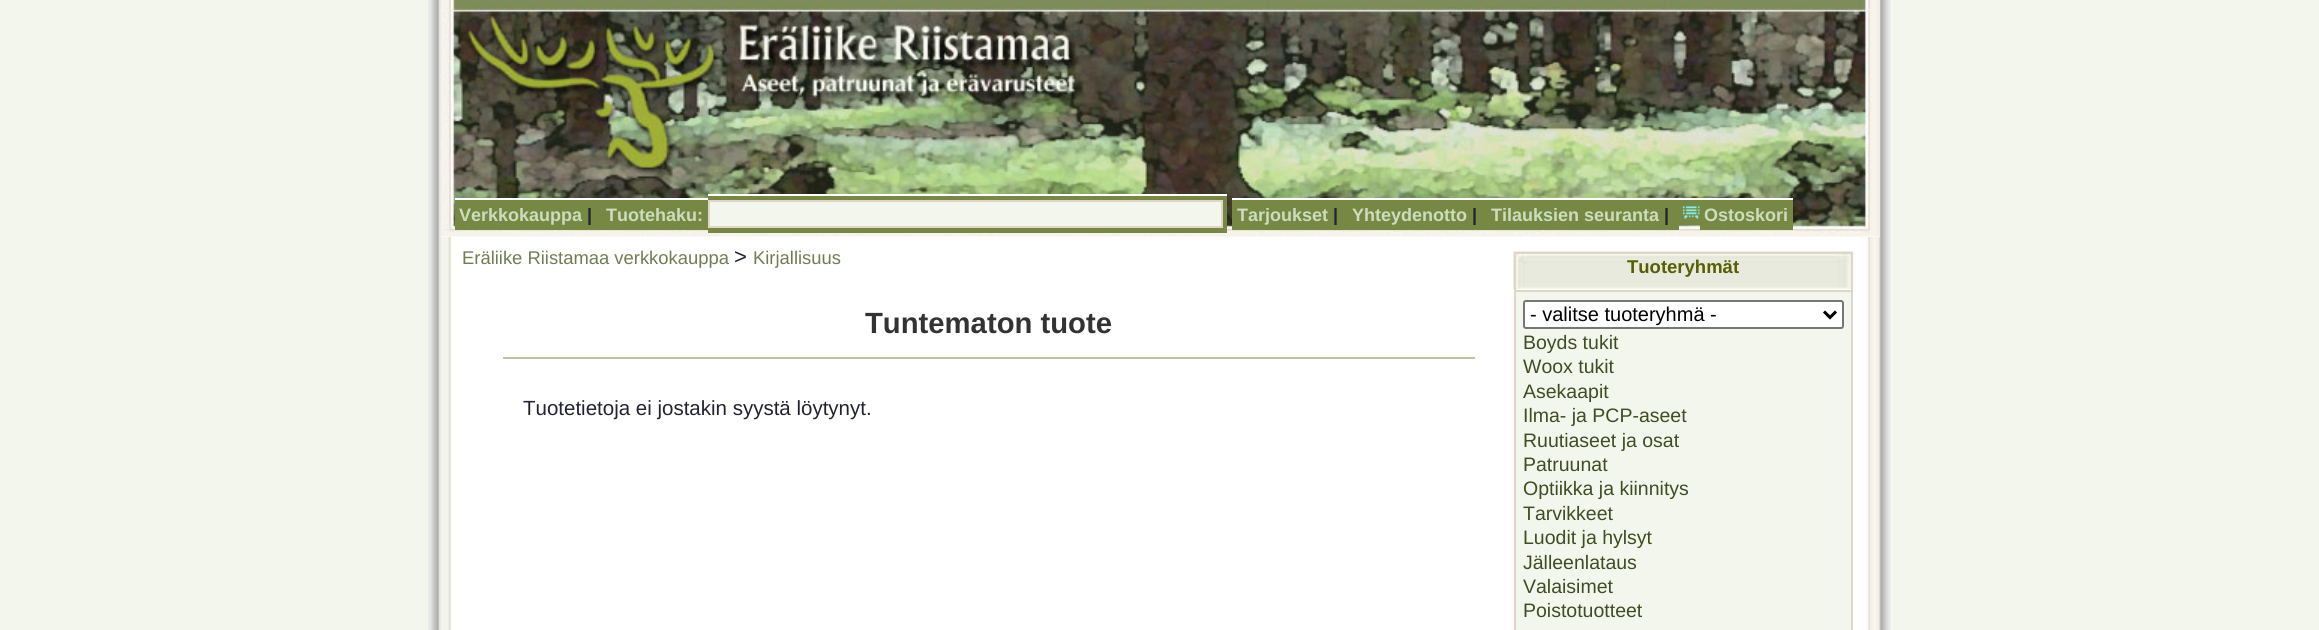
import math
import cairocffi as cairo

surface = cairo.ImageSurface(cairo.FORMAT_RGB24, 2319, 630)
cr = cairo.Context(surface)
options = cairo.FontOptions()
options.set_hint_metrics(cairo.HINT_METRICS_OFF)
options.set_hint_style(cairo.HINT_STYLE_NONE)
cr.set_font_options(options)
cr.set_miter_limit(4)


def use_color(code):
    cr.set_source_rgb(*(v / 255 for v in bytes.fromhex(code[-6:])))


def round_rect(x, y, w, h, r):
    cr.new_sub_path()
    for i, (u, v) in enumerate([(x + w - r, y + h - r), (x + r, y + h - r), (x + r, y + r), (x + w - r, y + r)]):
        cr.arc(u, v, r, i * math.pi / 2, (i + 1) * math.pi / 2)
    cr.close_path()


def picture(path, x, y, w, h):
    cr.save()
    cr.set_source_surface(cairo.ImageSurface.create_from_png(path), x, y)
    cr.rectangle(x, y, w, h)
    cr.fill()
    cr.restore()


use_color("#f3f6ed")
cr.paint()
use_color("#ffffff")
cr.rectangle(1891, 0, 1, 630)
cr.fill()
picture("img1.png", 428, 0, 1464, 630)
cr.rectangle(440, 0, 1440, 237)
cr.fill()
picture("img2.png", 440, 0, 1440, 237)
use_color("#778844")
cr.rectangle(455, 200, 249, 30)
cr.fill()
cr.select_font_face("Liberation Sans", cairo.FONT_SLANT_NORMAL, cairo.FONT_WEIGHT_BOLD)
cr.set_font_size(18)
use_color("#ccddbb")
cr.move_to(459, 221)
cr.show_text("Verkkokauppa")
use_color("#ffffff")
cr.rectangle(455, 198, 249, 2)
cr.fill()
use_color("#222233")
cr.move_to(587, 221)
cr.show_text("|")
use_color("#778844")
cr.rectangle(704, 198, 4, 32)
cr.fill()
use_color("#ffffff")
cr.rectangle(704, 198, 5, 2)
cr.fill()
use_color("#778844")
cr.rectangle(708, 196, 519, 37)
cr.fill()
use_color("#ffffff")
cr.rectangle(708, 194, 519, 2)
cr.fill()
use_color("#ccddbb")
cr.move_to(606, 221)
cr.show_text("Tuotehaku:")
use_color("#f3f6ed")
cr.rectangle(709, 201, 513, 26)
cr.fill_preserve()
use_color("#e1d6c6")
cr.stroke()
use_color("#778844")
cr.rectangle(1232, 200, 447, 30)
cr.fill()
use_color("#ccddbb")
cr.move_to(1237, 221)
cr.show_text("Tarjoukset")
use_color("#ffffff")
cr.rectangle(1232, 198, 468, 2)
cr.fill()
use_color("#222233")
cr.move_to(1333, 221)
cr.show_text("|")
use_color("#ccddbb")
cr.move_to(1352, 221)
cr.show_text("Yhteydenotto")
use_color("#222233")
cr.move_to(1472, 221)
cr.show_text("|")
use_color("#ccddbb")
cr.move_to(1491, 221)
cr.show_text("Tilauksien seuranta")
use_color("#222233")
cr.move_to(1664, 221)
cr.show_text("|")
use_color("#778844")
cr.rectangle(1679, 200, 21, 25)
cr.fill()
picture("img3.png", 1683, 206, 17, 13)
cr.rectangle(1704, 200, 89, 30)
cr.fill()
use_color("#ccddbb")
cr.move_to(1704, 221)
cr.show_text("Ostoskori")
use_color("#778844")
cr.rectangle(1700, 198, 4, 32)
cr.fill()
use_color("#ffffff")
cr.rectangle(1700, 198, 93, 2)
cr.fill()
cr.select_font_face("Liberation Sans")
cr.set_font_size(18.4)
use_color("#707d53")
cr.move_to(462, 264)
cr.show_text("Eräliike Riistamaa verkkokauppa")
cr.set_font_size(22)
use_color("#222233")
cr.move_to(734, 264)
cr.show_text(">")
cr.set_font_size(18.4)
use_color("#707d53")
cr.move_to(753, 264)
cr.show_text("Kirjallisuus")
cr.select_font_face("Liberation Sans", cairo.FONT_SLANT_NORMAL, cairo.FONT_WEIGHT_BOLD)
cr.set_font_size(29.25)
use_color("#333333")
cr.move_to(865, 333)
cr.show_text("Tuntematon tuote")
use_color("#bbc4a3")
cr.rectangle(503, 357, 972, 2)
cr.fill()
cr.select_font_face("Liberation Sans")
cr.set_font_size(20.5)
use_color("#222233")
cr.move_to(523, 415)
cr.show_text("Tuotetietoja ei jostakin syystä löytynyt.")
picture("img4.png", 1513, 251, 340, 38)
use_color("#e1d6c6")
cr.rectangle(1514, 252, 339, 2)
cr.fill()
cr.rectangle(1851, 252, 2, 38)
cr.fill()
cr.rectangle(1514, 252, 2, 38)
cr.fill()
cr.select_font_face("Liberation Sans", cairo.FONT_SLANT_NORMAL, cairo.FONT_WEIGHT_BOLD)
cr.set_font_size(18.5)
use_color("#575e04")
cr.move_to(1627, 273)
cr.show_text("Tuoteryhmät")
use_color("#f3f6ed")
cr.rectangle(1515, 291, 337, 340)
cr.fill_preserve()
use_color("#e1d6c6")
cr.stroke()
use_color("#ffffff")
round_rect(1524, 301, 319, 27, 2)
cr.fill_preserve()
use_color("#767676")
cr.stroke()
cr.new_path()
cr.move_to(1824, 311.5)
cr.line_to(1830, 317.5)
cr.line_to(1836, 311.5)
use_color("#000000")
cr.set_line_width(3)
cr.stroke()
cr.select_font_face("Liberation Sans")
cr.set_font_size(20)
cr.move_to(1530, 321)
cr.show_text("- valitse tuoteryhmä -")
cr.set_font_size(19.5)
use_color("#404d23")
cr.move_to(1523, 349)
cr.show_text("Boyds tukit")
cr.move_to(1523, 373)
cr.show_text("Woox tukit")
cr.move_to(1523, 398)
cr.show_text("Asekaapit")
cr.move_to(1523, 422)
cr.show_text("Ilma- ja PCP-aseet")
cr.move_to(1523, 447)
cr.show_text("Ruutiaseet ja osat")
cr.move_to(1523, 471)
cr.show_text("Patruunat")
cr.move_to(1523, 495)
cr.show_text("Optiikka ja kiinnitys")
cr.move_to(1523, 520)
cr.show_text("Tarvikkeet")
cr.move_to(1523, 544)
cr.show_text("Luodit ja hylsyt")
cr.move_to(1523, 569)
cr.show_text("Jälleenlataus")
cr.move_to(1523, 593)
cr.show_text("Valaisimet")
cr.move_to(1523, 617)
cr.show_text("Poistotuotteet")
surface.write_to_png("result.png")
